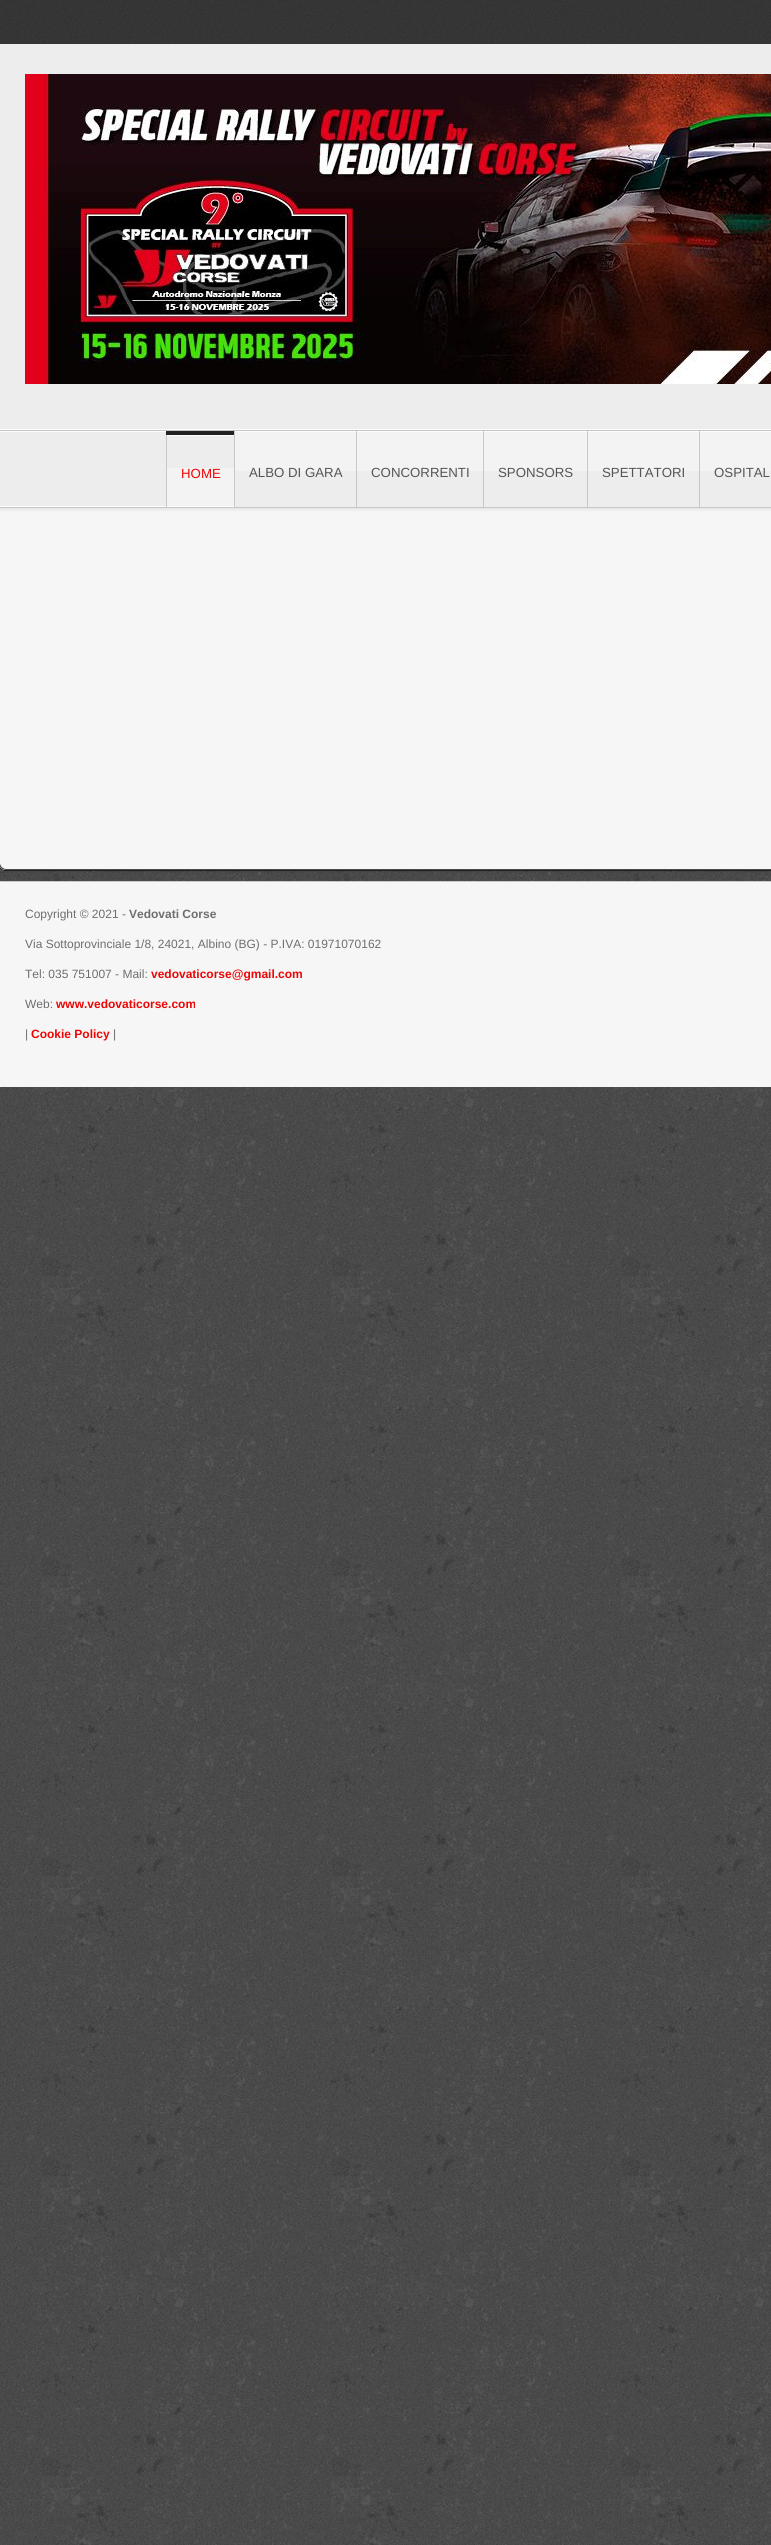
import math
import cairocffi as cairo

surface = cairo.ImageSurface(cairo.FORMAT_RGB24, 771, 2545)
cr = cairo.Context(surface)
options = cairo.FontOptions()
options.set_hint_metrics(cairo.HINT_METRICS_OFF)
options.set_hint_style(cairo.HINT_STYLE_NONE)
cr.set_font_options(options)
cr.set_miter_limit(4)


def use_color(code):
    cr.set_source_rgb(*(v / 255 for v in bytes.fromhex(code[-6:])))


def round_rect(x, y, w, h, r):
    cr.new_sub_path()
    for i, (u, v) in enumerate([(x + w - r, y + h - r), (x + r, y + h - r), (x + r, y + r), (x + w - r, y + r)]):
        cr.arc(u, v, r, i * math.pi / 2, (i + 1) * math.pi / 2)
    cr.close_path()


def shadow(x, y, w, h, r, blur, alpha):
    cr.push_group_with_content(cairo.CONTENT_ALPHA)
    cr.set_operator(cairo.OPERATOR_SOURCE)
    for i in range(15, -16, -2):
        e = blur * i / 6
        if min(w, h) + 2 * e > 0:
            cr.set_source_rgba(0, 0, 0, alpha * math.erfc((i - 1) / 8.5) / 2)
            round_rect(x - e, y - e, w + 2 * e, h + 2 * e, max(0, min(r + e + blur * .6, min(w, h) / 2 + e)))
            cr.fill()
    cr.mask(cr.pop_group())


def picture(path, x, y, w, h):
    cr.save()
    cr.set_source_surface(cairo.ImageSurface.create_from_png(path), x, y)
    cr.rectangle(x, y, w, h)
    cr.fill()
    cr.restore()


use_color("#2c2c2c")
cr.paint()
picture("img1.png", 0, 869, 771, 1676)
use_color("#000000")
shadow(-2, 0, 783, 871, 7, 1, 0.2)
use_color("#f6f6f6")
cr.new_path()
cr.move_to(-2, 0)
cr.line_to(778, 0)
cr.line_to(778, 864)
cr.curve_to(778, 868, 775, 871, 771, 871)
cr.line_to(5, 871)
cr.curve_to(1, 871, -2, 868, -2, 864)
cr.close_path()
cr.fill()
use_color("#202020")
cr.set_fill_rule(cairo.FILL_RULE_EVEN_ODD)
cr.new_path()
cr.move_to(-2, 0)
cr.line_to(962, 0)
cr.line_to(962, 864)
cr.curve_to(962, 868, 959, 871, 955, 871)
cr.line_to(5, 871)
cr.curve_to(1, 871, -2, 868, -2, 864)
cr.close_path()
cr.move_to(-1, 0)
cr.line_to(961, 0)
cr.line_to(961, 864)
cr.curve_to(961, 867, 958, 870, 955, 870)
cr.line_to(5, 870)
cr.curve_to(2, 870, -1, 867, -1, 864)
cr.close_path()
cr.fill()
use_color("#4a4a4a")
cr.new_path()
cr.move_to(-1, 0)
cr.line_to(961, 0)
cr.line_to(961, 863)
cr.curve_to(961, 867, 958, 870, 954, 870)
cr.line_to(6, 870)
cr.curve_to(2, 870, -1, 867, -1, 863)
cr.close_path()
cr.move_to(0, 0)
cr.line_to(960, 0)
cr.line_to(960, 863)
cr.curve_to(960, 866, 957, 869, 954, 869)
cr.line_to(6, 869)
cr.curve_to(3, 869, 0, 866, 0, 863)
cr.close_path()
cr.fill()
use_color("#333333")
cr.rectangle(0, 0, 771, 44)
cr.fill()
picture("img2.png", 0, 0, 771, 44)
use_color("#ededed")
cr.rectangle(0, 44, 771, 385)
cr.fill()
use_color("#c8c8c8")
cr.rectangle(0, 430, 771, 1)
cr.fill()
use_color("#000000")
shadow(0, 432, 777, 77, 0, 2, 0.1)
use_color("#ffffff")
cr.rectangle(0, 429, 771, 1)
cr.fill()
picture("img3.png", 25, 74, 746, 310)
cr.rectangle(0, 431, 166, 1)
cr.fill()
use_color("#c8c8c8")
cr.rectangle(0, 507, 771, 1)
cr.fill()
use_color("#ededed")
cr.rectangle(0, 432, 166, 74)
cr.fill()
use_color("#ffffff")
cr.rectangle(0, 506, 234, 1)
cr.fill()
use_color("#ededed")
cr.rectangle(235, 471, 536, 36)
cr.fill()
use_color("#f3f3f3")
cr.rectangle(235, 432, 536, 39)
cr.fill()
use_color("#ededed")
cr.rectangle(167, 436, 67, 32)
cr.fill()
use_color("#f3f3f3")
cr.rectangle(167, 468, 67, 38)
cr.fill()
use_color("#222222")
cr.rectangle(166, 431, 68, 4)
cr.fill()
use_color("#ffffff")
cr.rectangle(166, 435, 68, 1)
cr.fill()
use_color("#c8c8c8")
cr.rectangle(166, 435, 1, 72)
cr.fill()
cr.select_font_face("Liberation Sans")
cr.set_font_size(13.25)
use_color("#ed0505")
cr.move_to(181, 478)
cr.show_text("HOME")
use_color("#ffffff")
cr.rectangle(234, 431, 537, 1)
cr.fill()
use_color("#c8c8c8")
cr.rectangle(234, 431, 1, 76)
cr.fill()
use_color("#555555")
cr.move_to(249, 477)
cr.show_text("ALBO DI GARA")
use_color("#c8c8c8")
cr.rectangle(356, 431, 1, 76)
cr.fill()
use_color("#555555")
cr.move_to(371, 477)
cr.show_text("CONCORRENTI")
use_color("#c8c8c8")
cr.rectangle(483, 431, 1, 76)
cr.fill()
use_color("#555555")
cr.move_to(498, 477)
cr.show_text("SPONSORS")
use_color("#c8c8c8")
cr.rectangle(587, 431, 1, 76)
cr.fill()
use_color("#555555")
cr.move_to(602, 477)
cr.show_text("SPETTATORI")
use_color("#c8c8c8")
cr.rectangle(699, 431, 1, 76)
cr.fill()
use_color("#555555")
cr.move_to(714, 477)
cr.show_text("OSPITAL")
use_color("#f6f6f6")
cr.rectangle(0, 882, 771, 205)
cr.fill()
use_color("#c8c8c8")
cr.rectangle(0, 881, 771, 1)
cr.fill()
cr.set_font_size(12)
use_color("#6e6e6e")
cr.move_to(25, 918)
cr.show_text("Copyright © 2021 -")
cr.select_font_face("Liberation Sans", cairo.FONT_SLANT_NORMAL, cairo.FONT_WEIGHT_BOLD)
cr.move_to(129, 918)
cr.show_text("Vedovati Corse")
cr.select_font_face("Liberation Sans")
cr.move_to(25, 948)
cr.show_text("Via Sottoprovinciale 1/8, 24021, Albino (BG) - P.IVA: 01971070162")
cr.move_to(25, 978)
cr.show_text("Tel: 035 751007 - Mail:")
cr.select_font_face("Liberation Sans", cairo.FONT_SLANT_NORMAL, cairo.FONT_WEIGHT_BOLD)
use_color("#ed0505")
cr.move_to(151, 978)
cr.show_text("vedovaticorse@gmail.com")
cr.select_font_face("Liberation Sans")
use_color("#6e6e6e")
cr.move_to(25, 1008)
cr.show_text("Web:")
cr.select_font_face("Liberation Sans", cairo.FONT_SLANT_NORMAL, cairo.FONT_WEIGHT_BOLD)
use_color("#ed0505")
cr.move_to(56, 1008)
cr.show_text("www.vedovaticorse.com")
cr.select_font_face("Liberation Sans")
use_color("#6e6e6e")
cr.move_to(25, 1038)
cr.show_text("|")
cr.select_font_face("Liberation Sans", cairo.FONT_SLANT_NORMAL, cairo.FONT_WEIGHT_BOLD)
use_color("#ed0505")
cr.move_to(31, 1038)
cr.show_text("Cookie Policy")
cr.select_font_face("Liberation Sans")
use_color("#6e6e6e")
cr.move_to(113, 1038)
cr.show_text("|")
surface.write_to_png("result.png")
